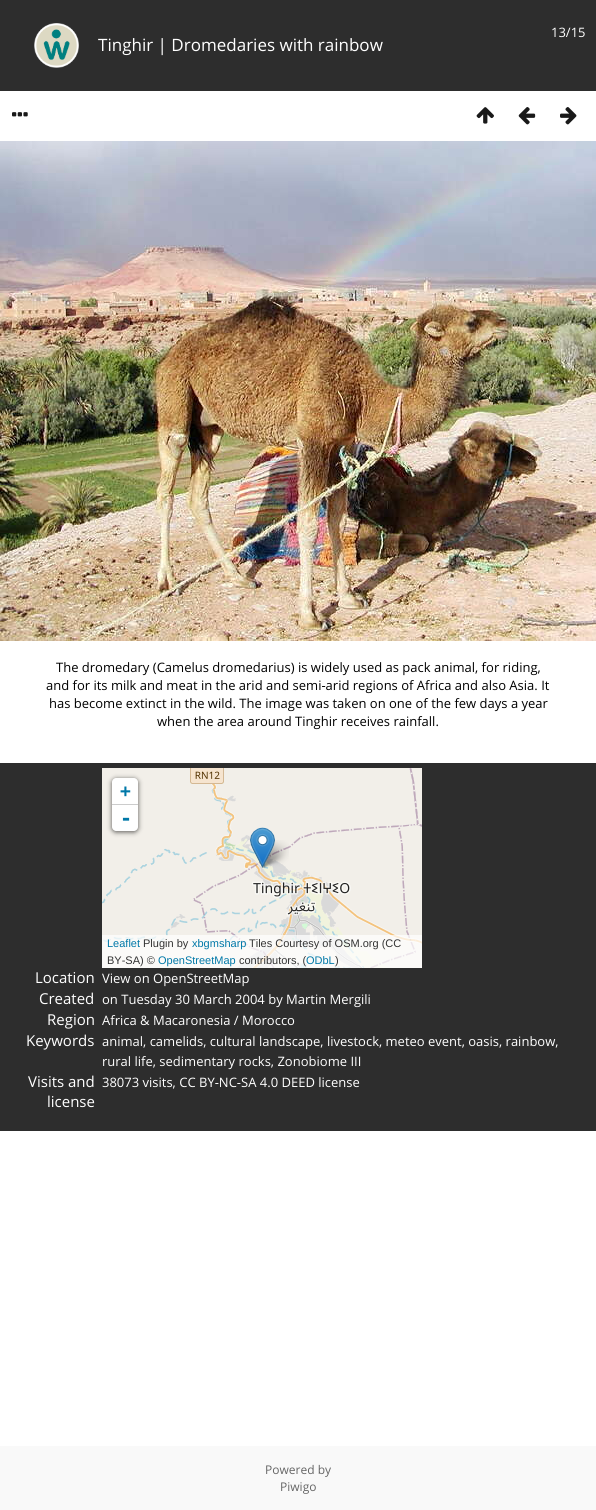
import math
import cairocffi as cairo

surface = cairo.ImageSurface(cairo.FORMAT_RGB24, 596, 1510)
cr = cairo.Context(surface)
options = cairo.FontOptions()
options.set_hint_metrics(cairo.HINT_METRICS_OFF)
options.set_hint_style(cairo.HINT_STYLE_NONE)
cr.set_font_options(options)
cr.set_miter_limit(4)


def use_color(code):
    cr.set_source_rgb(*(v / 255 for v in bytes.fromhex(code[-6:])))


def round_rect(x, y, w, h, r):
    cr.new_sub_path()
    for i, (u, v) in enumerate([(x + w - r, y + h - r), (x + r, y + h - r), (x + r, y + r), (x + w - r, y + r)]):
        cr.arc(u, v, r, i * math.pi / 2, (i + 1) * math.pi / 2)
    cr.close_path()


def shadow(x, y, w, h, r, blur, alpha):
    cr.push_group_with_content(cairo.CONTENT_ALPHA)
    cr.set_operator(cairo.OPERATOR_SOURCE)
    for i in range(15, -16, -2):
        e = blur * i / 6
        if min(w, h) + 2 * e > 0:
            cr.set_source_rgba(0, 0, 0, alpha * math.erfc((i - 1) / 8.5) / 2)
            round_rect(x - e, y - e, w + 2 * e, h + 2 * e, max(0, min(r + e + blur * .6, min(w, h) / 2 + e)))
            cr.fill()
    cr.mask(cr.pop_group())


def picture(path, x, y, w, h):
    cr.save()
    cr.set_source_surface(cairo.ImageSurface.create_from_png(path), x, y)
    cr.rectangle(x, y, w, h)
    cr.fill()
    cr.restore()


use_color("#ffffff")
cr.paint()
use_color("#2d2d2d")
cr.rectangle(0, 0, 596, 91)
cr.fill()
cr.select_font_face("Open Sans")
cr.set_font_size(13)
use_color("#ffffff")
cr.move_to(551, 37)
cr.show_text("13/15")
picture("img1.png", 34, 23, 45, 45)
cr.set_font_size(17)
cr.move_to(98, 51)
cr.show_text("Tinghir | Dromedaries with rainbow")
picture("img2.png", 12, 112, 16, 5)
picture("img3.png", 476, 107, 18, 17)
picture("img4.png", 518, 107, 18, 18)
picture("img5.png", 560, 107, 17, 18)
picture("img6.png", 0, 141, 596, 500)
cr.set_font_size(13)
use_color("#000000")
cr.move_to(56, 672)
cr.show_text("The dromedary (Camelus dromedarius) is widely used as pack animal, for riding,")
cr.move_to(46, 690)
cr.show_text("and for its milk and meat in the arid and semi-arid regions of Africa and also Asia. It")
cr.move_to(49, 708)
cr.show_text("has become extinct in the wild. The image was taken on one of the few days a year")
cr.move_to(157, 726)
cr.show_text("when the area around Tinghir receives rainfall.")
use_color("#2d2d2d")
cr.rectangle(0, 763, 596, 368)
cr.fill()
cr.set_font_size(15)
use_color("#ffffff")
cr.move_to(35, 983)
cr.show_text("Location")
picture("img7.png", 102, 768, 63, 159)
picture("img8.png", 165, 768, 256, 159)
picture("img9.png", 421, 768, 1, 159)
picture("img10.png", 102, 927, 63, 41)
picture("img11.png", 165, 927, 256, 41)
picture("img12.png", 421, 927, 1, 41)
picture("img14.png", 260, 840, 29, 28)
picture("img13.png", 250, 827, 25, 41)
use_color("#000000")
shadow(112, 779, 26, 53, 4, 2.5, 0.65)
use_color("#ffffff")
cr.new_path()
cr.move_to(116, 778)
cr.line_to(134, 778)
cr.curve_to(136, 778, 138, 780, 138, 782)
cr.line_to(138, 805)
cr.line_to(112, 805)
cr.line_to(112, 782)
cr.curve_to(112, 780, 114, 778, 116, 778)
cr.close_path()
cr.fill()
use_color("#cccccc")
cr.rectangle(112, 804, 26, 1)
cr.fill()
cr.select_font_face("DejaVu Sans Mono", cairo.FONT_SLANT_NORMAL, cairo.FONT_WEIGHT_BOLD)
cr.set_font_size(18)
use_color("#0078a8")
cr.move_to(120, 797)
cr.show_text("+")
use_color("#ffffff")
cr.new_path()
cr.move_to(112, 805)
cr.line_to(138, 805)
cr.line_to(138, 827)
cr.curve_to(138, 829, 136, 831, 134, 831)
cr.line_to(116, 831)
cr.curve_to(114, 831, 112, 829, 112, 827)
cr.close_path()
cr.fill()
cr.set_font_size(20)
use_color("#0078a8")
cr.move_to(120, 825)
cr.show_text("-")
cr.set_source_rgba(1, 1, 1, 0.7)
cr.rectangle(102, 935, 320, 33)
cr.fill()
cr.select_font_face("Liberation Sans")
cr.set_font_size(11)
use_color("#0078a8")
cr.move_to(107, 947)
cr.show_text("Leaflet")
use_color("#333333")
cr.move_to(143, 947)
cr.show_text("Plugin by")
use_color("#0078a8")
cr.move_to(192, 947)
cr.show_text("xbgmsharp")
use_color("#333333")
cr.move_to(249, 947)
cr.show_text("Tiles Courtesy of OSM.org (CC")
cr.move_to(107, 964)
cr.show_text("BY-SA) ©")
use_color("#0078a8")
cr.move_to(158, 964)
cr.show_text("OpenStreetMap")
use_color("#333333")
cr.move_to(239, 964)
cr.show_text("contributors, (")
use_color("#0078a8")
cr.move_to(306, 964)
cr.show_text("ODbL")
use_color("#333333")
cr.move_to(335, 964)
cr.show_text(")")
cr.select_font_face("Open Sans")
cr.set_font_size(13)
use_color("#ffffff")
cr.move_to(102, 983)
cr.show_text("View on OpenStreetMap")
cr.set_font_size(15)
cr.move_to(39, 1004)
cr.show_text("Created")
cr.set_font_size(13)
cr.move_to(102, 1004)
cr.show_text("on Tuesday 30 March 2004 by Martin Mergili")
cr.set_font_size(15)
cr.move_to(47, 1025)
cr.show_text("Region")
cr.set_font_size(13)
cr.move_to(102, 1025)
cr.show_text("Africa & Macaronesia / Morocco")
cr.set_font_size(15)
cr.move_to(26, 1046)
cr.show_text("Keywords")
cr.set_font_size(13)
cr.move_to(102, 1046)
cr.show_text("animal, camelids, cultural landscape, livestock, meteo event, oasis, rainbow,")
cr.move_to(102, 1066)
cr.show_text("rural life, sedimentary rocks, Zonobiome III")
cr.set_font_size(15)
cr.move_to(28, 1087)
cr.show_text("Visits and")
cr.move_to(47, 1107)
cr.show_text("license")
cr.set_font_size(13)
cr.move_to(102, 1087)
cr.show_text("38073 visits, CC BY-NC-SA 4.0 DEED license")
use_color("#f9f9f9")
cr.rectangle(0, 1446, 596, 64)
cr.fill()
cr.set_font_size(12)
use_color("#666666")
cr.move_to(265, 1474)
cr.show_text("Powered by")
cr.move_to(280, 1491)
cr.show_text("Piwigo")
surface.write_to_png("result.png")
